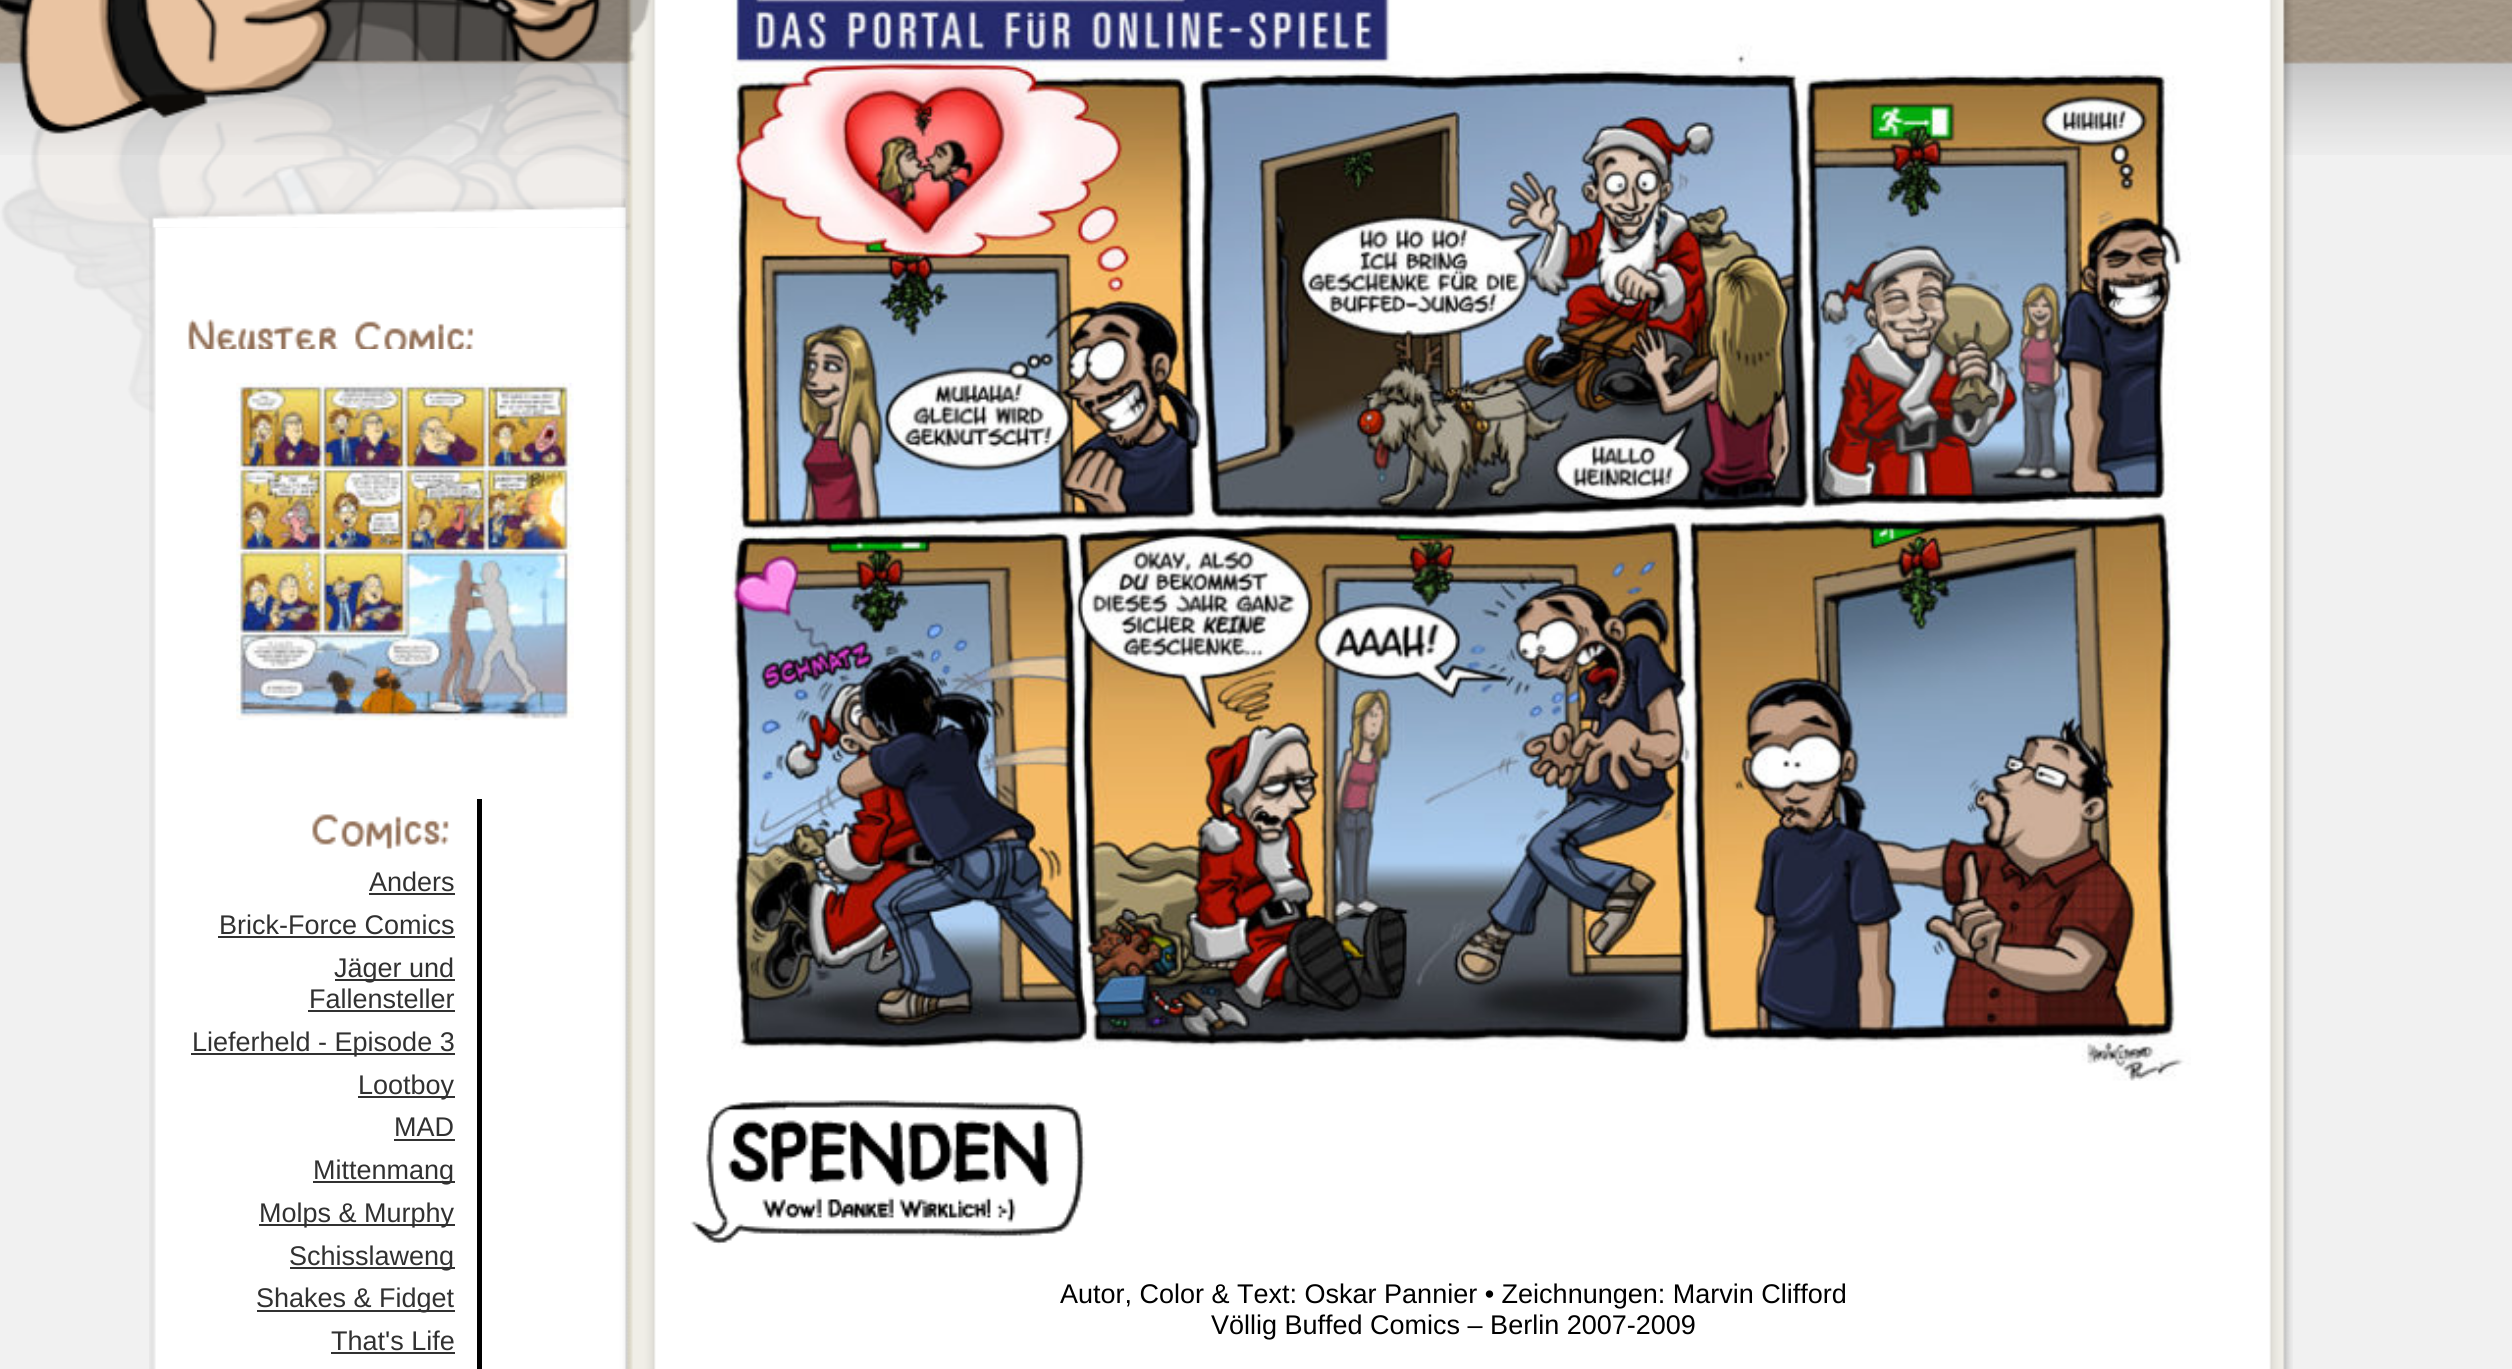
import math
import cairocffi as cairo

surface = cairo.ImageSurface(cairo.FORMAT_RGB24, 2512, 1369)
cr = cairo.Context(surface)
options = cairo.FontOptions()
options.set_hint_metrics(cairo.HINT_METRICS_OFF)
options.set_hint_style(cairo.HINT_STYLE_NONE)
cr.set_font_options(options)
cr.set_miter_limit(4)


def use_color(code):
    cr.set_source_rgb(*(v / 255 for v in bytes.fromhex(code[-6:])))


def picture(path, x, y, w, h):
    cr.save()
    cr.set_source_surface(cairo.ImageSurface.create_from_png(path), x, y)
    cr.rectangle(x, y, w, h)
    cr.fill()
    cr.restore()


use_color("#f1f1f1")
cr.paint()
picture("img1.png", 0, 0, 2512, 155)
picture("img8.png", 621, 0, 1672, 1369)
picture("img2.png", 0, 0, 651, 542)
picture("img3.png", 148, 198, 478, 30)
picture("img4.png", 149, 227, 477, 1142)
picture("img5.png", 188, 319, 286, 30)
picture("img6.png", 236, 382, 338, 339)
use_color("#000000")
cr.rectangle(477, 799, 5, 570)
cr.fill()
picture("img7.png", 312, 814, 137, 36)
cr.select_font_face("Liberation Sans")
cr.set_font_size(27)
use_color("#313131")
cr.move_to(369, 891)
cr.show_text("Anders")
cr.rectangle(369, 893, 86, 2)
cr.fill()
cr.move_to(219, 934)
cr.show_text("Brick-Force Comics")
cr.rectangle(218, 936, 237, 2)
cr.fill()
cr.rectangle(335, 979, 120, 2)
cr.fill()
cr.move_to(334, 977)
cr.show_text("Jäger und")
cr.move_to(309, 1008)
cr.show_text("Fallensteller")
cr.rectangle(308, 1010, 147, 2)
cr.fill()
cr.rectangle(191, 1053, 264, 2)
cr.fill()
cr.move_to(192, 1051)
cr.show_text("Lieferheld - Episode 3")
cr.rectangle(358, 1096, 97, 2)
cr.fill()
cr.move_to(358, 1094)
cr.show_text("Lootboy")
cr.move_to(394, 1136)
cr.show_text("MAD")
cr.rectangle(394, 1139, 61, 2)
cr.fill()
cr.rectangle(313, 1181, 142, 2)
cr.fill()
cr.move_to(313, 1179)
cr.show_text("Mittenmang")
cr.rectangle(259, 1224, 196, 2)
cr.fill()
cr.move_to(259, 1222)
cr.show_text("Molps & Murphy")
cr.rectangle(290, 1267, 165, 2)
cr.fill()
cr.move_to(289, 1265)
cr.show_text("Schisslaweng")
cr.rectangle(257, 1310, 198, 2)
cr.fill()
cr.move_to(256, 1307)
cr.show_text("Shakes & Fidget")
cr.move_to(331, 1350)
cr.show_text("That's Life")
cr.rectangle(331, 1352, 124, 2)
cr.fill()
picture("img9.png", 731, 0, 1460, 1081)
picture("img10.png", 690, 1100, 395, 145)
use_color("#000000")
cr.move_to(1060, 1303)
cr.show_text("Autor, Color & Text: Oskar Pannier • Zeichnungen: Marvin Clifford")
cr.move_to(1211, 1334)
cr.show_text("Völlig Buffed Comics – Berlin 2007-2009")
surface.write_to_png("result.png")
